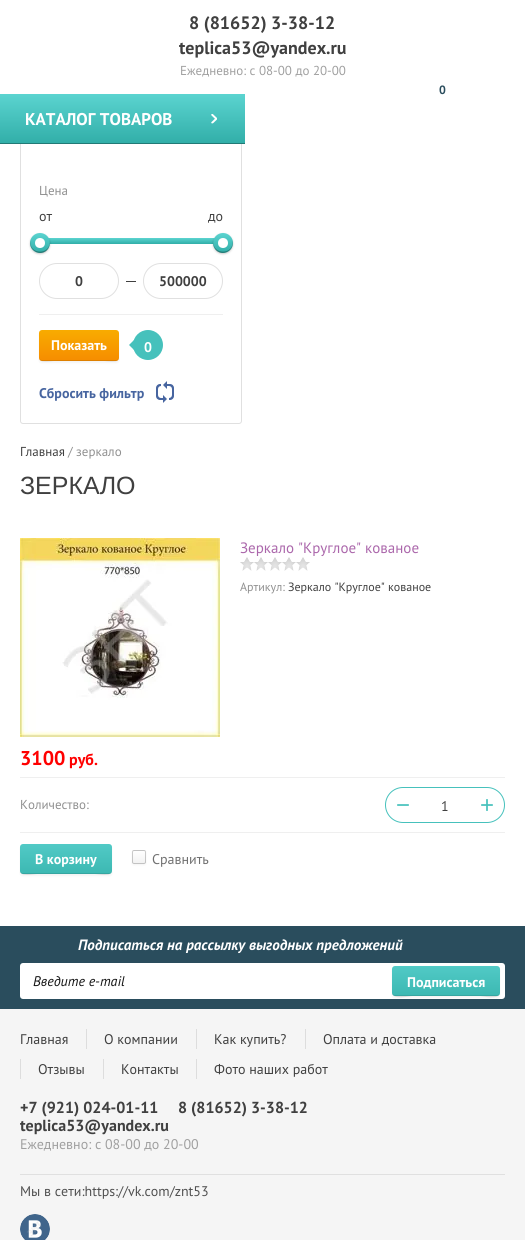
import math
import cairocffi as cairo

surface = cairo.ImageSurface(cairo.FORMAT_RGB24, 525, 1240)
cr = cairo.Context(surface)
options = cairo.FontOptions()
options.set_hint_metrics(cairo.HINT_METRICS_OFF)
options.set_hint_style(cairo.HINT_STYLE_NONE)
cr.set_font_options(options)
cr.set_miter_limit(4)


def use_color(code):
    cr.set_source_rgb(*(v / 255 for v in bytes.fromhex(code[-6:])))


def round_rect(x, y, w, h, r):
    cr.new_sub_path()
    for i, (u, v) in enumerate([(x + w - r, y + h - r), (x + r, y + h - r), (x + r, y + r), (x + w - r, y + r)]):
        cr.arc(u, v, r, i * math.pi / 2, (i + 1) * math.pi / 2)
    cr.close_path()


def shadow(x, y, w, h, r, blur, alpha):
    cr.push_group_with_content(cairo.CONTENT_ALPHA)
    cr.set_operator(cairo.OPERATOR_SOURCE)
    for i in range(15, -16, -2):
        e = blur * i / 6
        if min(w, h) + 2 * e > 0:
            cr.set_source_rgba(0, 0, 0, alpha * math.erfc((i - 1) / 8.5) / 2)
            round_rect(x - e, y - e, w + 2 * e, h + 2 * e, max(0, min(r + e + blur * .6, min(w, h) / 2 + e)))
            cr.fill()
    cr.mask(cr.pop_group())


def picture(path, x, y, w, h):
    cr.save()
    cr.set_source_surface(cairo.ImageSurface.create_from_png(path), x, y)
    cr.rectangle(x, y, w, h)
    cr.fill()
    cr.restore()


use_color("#ffffff")
cr.paint()
cr.select_font_face("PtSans", cairo.FONT_SLANT_NORMAL, cairo.FONT_WEIGHT_BOLD)
cr.set_font_size(18)
use_color("#404040")
cr.move_to(189, 29)
cr.show_text("8 (81652) 3-38-12")
cr.move_to(179, 54)
cr.show_text("teplica53@yandex.ru")
cr.select_font_face("PtSans")
cr.set_font_size(13)
use_color("#a0a0a0")
cr.move_to(180, 75)
cr.show_text("Ежедневно: с 08-00 до 20-00")
cr.select_font_face("PtSans", cairo.FONT_SLANT_NORMAL, cairo.FONT_WEIGHT_BOLD)
cr.set_font_size(12)
use_color("#2a4d5d")
cr.move_to(439, 94)
cr.show_text("0")
round_rect(20.5, 124.5, 221, 299, 2.5)
use_color("#e0e0e0")
cr.set_line_width(1)
cr.stroke()
gradient = cairo.LinearGradient(123, 144, 123, 94)
gradient.add_color_stop_rgba(0, 0.192, 0.682, 0.659, 1)
gradient.add_color_stop_rgba(1, 0.357, 0.831, 0.816, 1)
cr.set_source(gradient)
cr.rectangle(0, 94, 245, 49)
cr.fill()
use_color("#227a76")
cr.rectangle(0, 143, 245, 1)
cr.fill()
cr.set_font_size(17)
use_color("#ffffff")
cr.move_to(25, 125)
cr.show_text("КАТАЛОГ ТОВАРОВ")
picture("img1.png", 211, 114, 6, 10)
cr.select_font_face("PtSans")
cr.set_font_size(13)
use_color("#909090")
cr.move_to(39, 195)
cr.show_text("Цена")
cr.set_font_size(14)
use_color("#404040")
cr.move_to(39, 221)
cr.show_text("от")
cr.move_to(208, 221)
cr.show_text("до")
gradient = cairo.LinearGradient(131, 244, 131, 238)
gradient.add_color_stop_rgba(0, 0.192, 0.682, 0.659, 1)
gradient.add_color_stop_rgba(1, 0.357, 0.831, 0.816, 1)
cr.set_source(gradient)
cr.rectangle(40, 238, 182, 6)
cr.fill()
use_color("#000000")
shadow(30, 234, 20, 20, 10, 1, 0.2)
gradient = cairo.LinearGradient(40, 253, 40, 233)
gradient.add_color_stop_rgba(0, 0.192, 0.682, 0.659, 1)
gradient.add_color_stop_rgba(1, 0.357, 0.831, 0.816, 1)
cr.set_source(gradient)
cr.arc(40, 243, 10, 0, 2 * math.pi)
cr.fill()
cr.set_source_rgba(0, 0, 0, 0.3)
cr.new_path()
cr.move_to(30.5, 240)
cr.curve_to(27, 252, 44.5, 258.5, 49, 247)
cr.curve_to(50, 245, 50, 242.5, 49.5, 240)
cr.curve_to(52, 255.5, 28, 255.5, 30.5, 240)
cr.close_path()
cr.fill()
use_color("#ffffff")
cr.arc(40, 243, 5, 0, 2 * math.pi)
cr.fill()
use_color("#000000")
shadow(213, 234, 20, 20, 10, 1, 0.2)
gradient = cairo.LinearGradient(223, 253, 223, 233)
gradient.add_color_stop_rgba(0, 0.192, 0.682, 0.659, 1)
gradient.add_color_stop_rgba(1, 0.357, 0.831, 0.816, 1)
cr.set_source(gradient)
cr.arc(223, 243, 10, 0, 2 * math.pi)
cr.fill()
cr.set_source_rgba(0, 0, 0, 0.3)
cr.new_path()
cr.move_to(213.5, 240)
cr.curve_to(213, 242.5, 213, 245, 214, 247)
cr.curve_to(218.5, 258.5, 236, 252, 232.5, 240)
cr.curve_to(235, 255.5, 211, 255.5, 213.5, 240)
cr.close_path()
cr.fill()
use_color("#ffffff")
cr.arc(223, 243, 5, 0, 2 * math.pi)
cr.fill()
round_rect(39.5, 263.5, 79, 35, 17.5)
use_color("#e0e0e0")
cr.stroke()
cr.select_font_face("PtSans", cairo.FONT_SLANT_NORMAL, cairo.FONT_WEIGHT_BOLD)
use_color("#404040")
cr.move_to(75, 286)
cr.show_text("0")
cr.rectangle(126, 281, 10, 1)
cr.fill()
round_rect(143.5, 263.5, 79, 35, 17.5)
use_color("#e0e0e0")
cr.stroke()
use_color("#404040")
cr.move_to(159, 286)
cr.show_text("500000")
use_color("#efefef")
cr.rectangle(39, 314, 184, 1)
cr.fill()
use_color("#000000")
shadow(39, 332, 80, 31, 3, 1, 0.05)
gradient = cairo.LinearGradient(79, 361, 79, 330)
gradient.add_color_stop_rgba(0, 0.965, 0.553, 0, 1)
gradient.add_color_stop_rgba(1, 0.973, 0.671, 0, 1)
cr.set_source(gradient)
round_rect(39, 330, 80, 31, 3)
cr.fill()
cr.set_source_rgba(0, 0, 0, 0.1)
cr.new_path()
cr.move_to(39, 357)
cr.curve_to(39, 364, 50, 361, 54, 361)
cr.line_to(104, 361)
cr.curve_to(108, 361, 119, 364, 119, 357)
cr.curve_to(119, 359, 118, 360, 116, 360)
cr.line_to(42, 360)
cr.curve_to(40, 360, 39, 359, 39, 357)
cr.close_path()
cr.fill()
use_color("#ffffff")
cr.move_to(51, 350)
cr.show_text("Показать")
use_color("#46c1bc")
cr.new_path()
cr.arc(148, 345, 15, 0, 2 * math.pi)
cr.fill()
cr.new_path()
cr.move_to(134, 340)
cr.line_to(134, 350)
cr.line_to(129, 345)
cr.close_path()
cr.fill()
use_color("#ffffff")
cr.move_to(144, 352)
cr.show_text("0")
picture("img2.png", 156, 381, 18, 22)
use_color("#4765a0")
cr.move_to(39, 398)
cr.show_text("Сбросить фильтр")
cr.select_font_face("PtSans")
cr.set_font_size(13)
use_color("#404040")
cr.move_to(20, 456)
cr.show_text("Главная")
use_color("#909090")
cr.move_to(68, 456)
cr.show_text("/ зеркало")
cr.select_font_face("Liberation Sans")
cr.set_font_size(25)
use_color("#404040")
cr.move_to(20, 494)
cr.show_text("ЗЕРКАЛО")
picture("img3.png", 20, 538, 200, 199)
cr.select_font_face("PtSans")
cr.set_font_size(15)
use_color("#ab67ab")
cr.move_to(240, 553)
cr.show_text("Зеркало \"Круглое\" кованое")
picture("img4.png", 240, 557, 70, 14)
cr.set_font_size(12)
use_color("#909090")
cr.move_to(240, 591)
cr.show_text("Артикул:")
use_color("#404040")
cr.move_to(288, 591)
cr.show_text("Зеркало \"Круглое\" кованое")
use_color("#efefef")
cr.rectangle(20, 777, 485, 1)
cr.fill()
cr.select_font_face("PtSans", cairo.FONT_SLANT_NORMAL, cairo.FONT_WEIGHT_BOLD)
cr.set_font_size(20)
use_color("#ff0000")
cr.move_to(20, 765)
cr.show_text("3100")
cr.set_font_size(16)
cr.move_to(69, 765)
cr.show_text("руб.")
use_color("#efefef")
cr.rectangle(20, 832, 485, 1)
cr.fill()
cr.select_font_face("PtSans")
cr.set_font_size(13)
use_color("#909090")
cr.move_to(20, 809)
cr.show_text("Количество:")
round_rect(385.5, 787.5, 119, 35, 17.5)
use_color("#46c1bc")
cr.stroke()
cr.select_font_face("Liberation Sans")
cr.set_font_size(24)
cr.move_to(396, 813)
cr.show_text("−")
cr.select_font_face("PtSans")
cr.set_font_size(14)
use_color("#404040")
cr.move_to(441, 811)
cr.show_text("1")
cr.select_font_face("Liberation Sans")
cr.set_font_size(24)
use_color("#46c1bc")
cr.move_to(480, 813)
cr.show_text("+")
use_color("#000000")
shadow(20, 846, 92, 30, 3, 1, 0.05)
gradient = cairo.LinearGradient(66, 874, 66, 844)
gradient.add_color_stop_rgba(0, 0.235, 0.722, 0.698, 1)
gradient.add_color_stop_rgba(1, 0.318, 0.792, 0.776, 1)
cr.set_source(gradient)
round_rect(20, 844, 92, 30, 3)
cr.fill()
cr.set_source_rgba(0, 0, 0, 0.1)
cr.new_path()
cr.move_to(20, 870)
cr.curve_to(20, 878, 34, 874, 37, 874)
cr.line_to(95, 874)
cr.curve_to(98, 874, 112, 878, 112, 870)
cr.curve_to(112, 872, 111, 873, 109, 873)
cr.line_to(23, 873)
cr.curve_to(21, 873, 20, 872, 20, 870)
cr.close_path()
cr.fill()
cr.select_font_face("PtSans", cairo.FONT_SLANT_NORMAL, cairo.FONT_WEIGHT_BOLD)
cr.set_font_size(14)
use_color("#ffffff")
cr.move_to(35, 864)
cr.show_text("В корзину")
use_color("#000000")
shadow(132, 851, 14, 14, 2, 1, 0.05)
cr.save()
round_rect(132, 850, 14, 14, 2)
cr.clip()
gradient = cairo.LinearGradient(139, 851, 139, 839)
gradient.add_color_stop_rgba(0, 0.949, 0.949, 0.949, 1)
gradient.add_color_stop_rgba(1, 1, 1, 1, 1)
cr.set_source(gradient)
cr.rectangle(132, 850, 14, 1)
cr.fill()
gradient = cairo.LinearGradient(139, 863, 139, 851)
gradient.add_color_stop_rgba(0, 0.949, 0.949, 0.949, 1)
gradient.add_color_stop_rgba(1, 1, 1, 1, 1)
cr.set_source(gradient)
cr.rectangle(132, 851, 14, 12)
cr.fill()
cr.restore()
round_rect(132.5, 850.5, 13, 13, 1.5)
cr.set_source_rgba(0, 0, 0, 0.2)
cr.stroke()
cr.select_font_face("PtSans")
use_color("#707070")
cr.move_to(152, 864)
cr.show_text("Сравнить")
use_color("#f5f5f5")
cr.rectangle(0, 1009, 525, 231)
cr.fill()
use_color("#2a4d5d")
cr.rectangle(0, 926, 525, 83)
cr.fill()
cr.select_font_face("PtSans", cairo.FONT_SLANT_ITALIC, cairo.FONT_WEIGHT_BOLD)
cr.set_font_size(15)
use_color("#ffffff")
cr.move_to(78, 950)
cr.show_text("Подписаться на рассылку выгодных предложений")
round_rect(20, 963, 485, 36, 3)
cr.fill()
cr.select_font_face("PtSans", cairo.FONT_SLANT_ITALIC)
cr.set_font_size(14)
use_color("#151515")
cr.move_to(33, 986)
cr.show_text("Введите e-mail")
use_color("#000000")
shadow(392, 968, 108, 30, 3, 1, 0.05)
gradient = cairo.LinearGradient(446, 996, 446, 966)
gradient.add_color_stop_rgba(0, 0.235, 0.722, 0.698, 1)
gradient.add_color_stop_rgba(1, 0.318, 0.792, 0.776, 1)
cr.set_source(gradient)
round_rect(392, 966, 108, 30, 3)
cr.fill()
cr.set_source_rgba(0, 0, 0, 0.1)
cr.new_path()
cr.move_to(392, 992)
cr.curve_to(392, 1001, 410, 996, 412, 996)
cr.line_to(480, 996)
cr.curve_to(482, 996, 500, 1001, 500, 992)
cr.curve_to(500, 994, 499, 995, 497, 995)
cr.line_to(395, 995)
cr.curve_to(393, 995, 392, 994, 392, 992)
cr.close_path()
cr.fill()
cr.select_font_face("PtSans", cairo.FONT_SLANT_NORMAL, cairo.FONT_WEIGHT_BOLD)
use_color("#ffffff")
cr.move_to(407, 987)
cr.show_text("Подписаться")
use_color("#e0e0e0")
cr.rectangle(20, 1174, 485, 1)
cr.fill()
cr.select_font_face("PtSans")
use_color("#404040")
cr.move_to(20, 1044)
cr.show_text("Главная")
use_color("#dddddd")
cr.rectangle(86, 1029, 1, 20)
cr.fill()
use_color("#404040")
cr.move_to(104, 1044)
cr.show_text("О компании")
use_color("#dddddd")
cr.rectangle(196, 1029, 1, 20)
cr.fill()
use_color("#404040")
cr.move_to(214, 1044)
cr.show_text("Как купить?")
use_color("#dddddd")
cr.rectangle(305, 1029, 1, 20)
cr.fill()
use_color("#404040")
cr.move_to(323, 1044)
cr.show_text("Оплата и доставка")
use_color("#dddddd")
cr.rectangle(20, 1059, 1, 20)
cr.fill()
use_color("#404040")
cr.move_to(38, 1074)
cr.show_text("Отзывы")
use_color("#dddddd")
cr.rectangle(103, 1059, 1, 20)
cr.fill()
use_color("#404040")
cr.move_to(121, 1074)
cr.show_text("Контакты")
use_color("#dddddd")
cr.rectangle(196, 1059, 1, 20)
cr.fill()
use_color("#404040")
cr.move_to(214, 1074)
cr.show_text("Фото наших работ")
cr.select_font_face("PtSans", cairo.FONT_SLANT_NORMAL, cairo.FONT_WEIGHT_BOLD)
cr.set_font_size(16)
cr.move_to(20, 1113)
cr.show_text("+7 (921) 024-01-11")
cr.move_to(178, 1113)
cr.show_text("8 (81652) 3-38-12")
cr.move_to(20, 1131)
cr.show_text("teplica53@yandex.ru")
cr.select_font_face("PtSans")
cr.set_font_size(14)
use_color("#a0a0a0")
cr.move_to(20, 1149)
cr.show_text("Ежедневно: с 08-00 до 20-00")
use_color("#505050")
cr.move_to(20, 1196)
cr.show_text("Мы в сети:https://vk.com/znt53")
picture("img5.png", 20, 1214, 30, 26)
surface.write_to_png("result.png")
